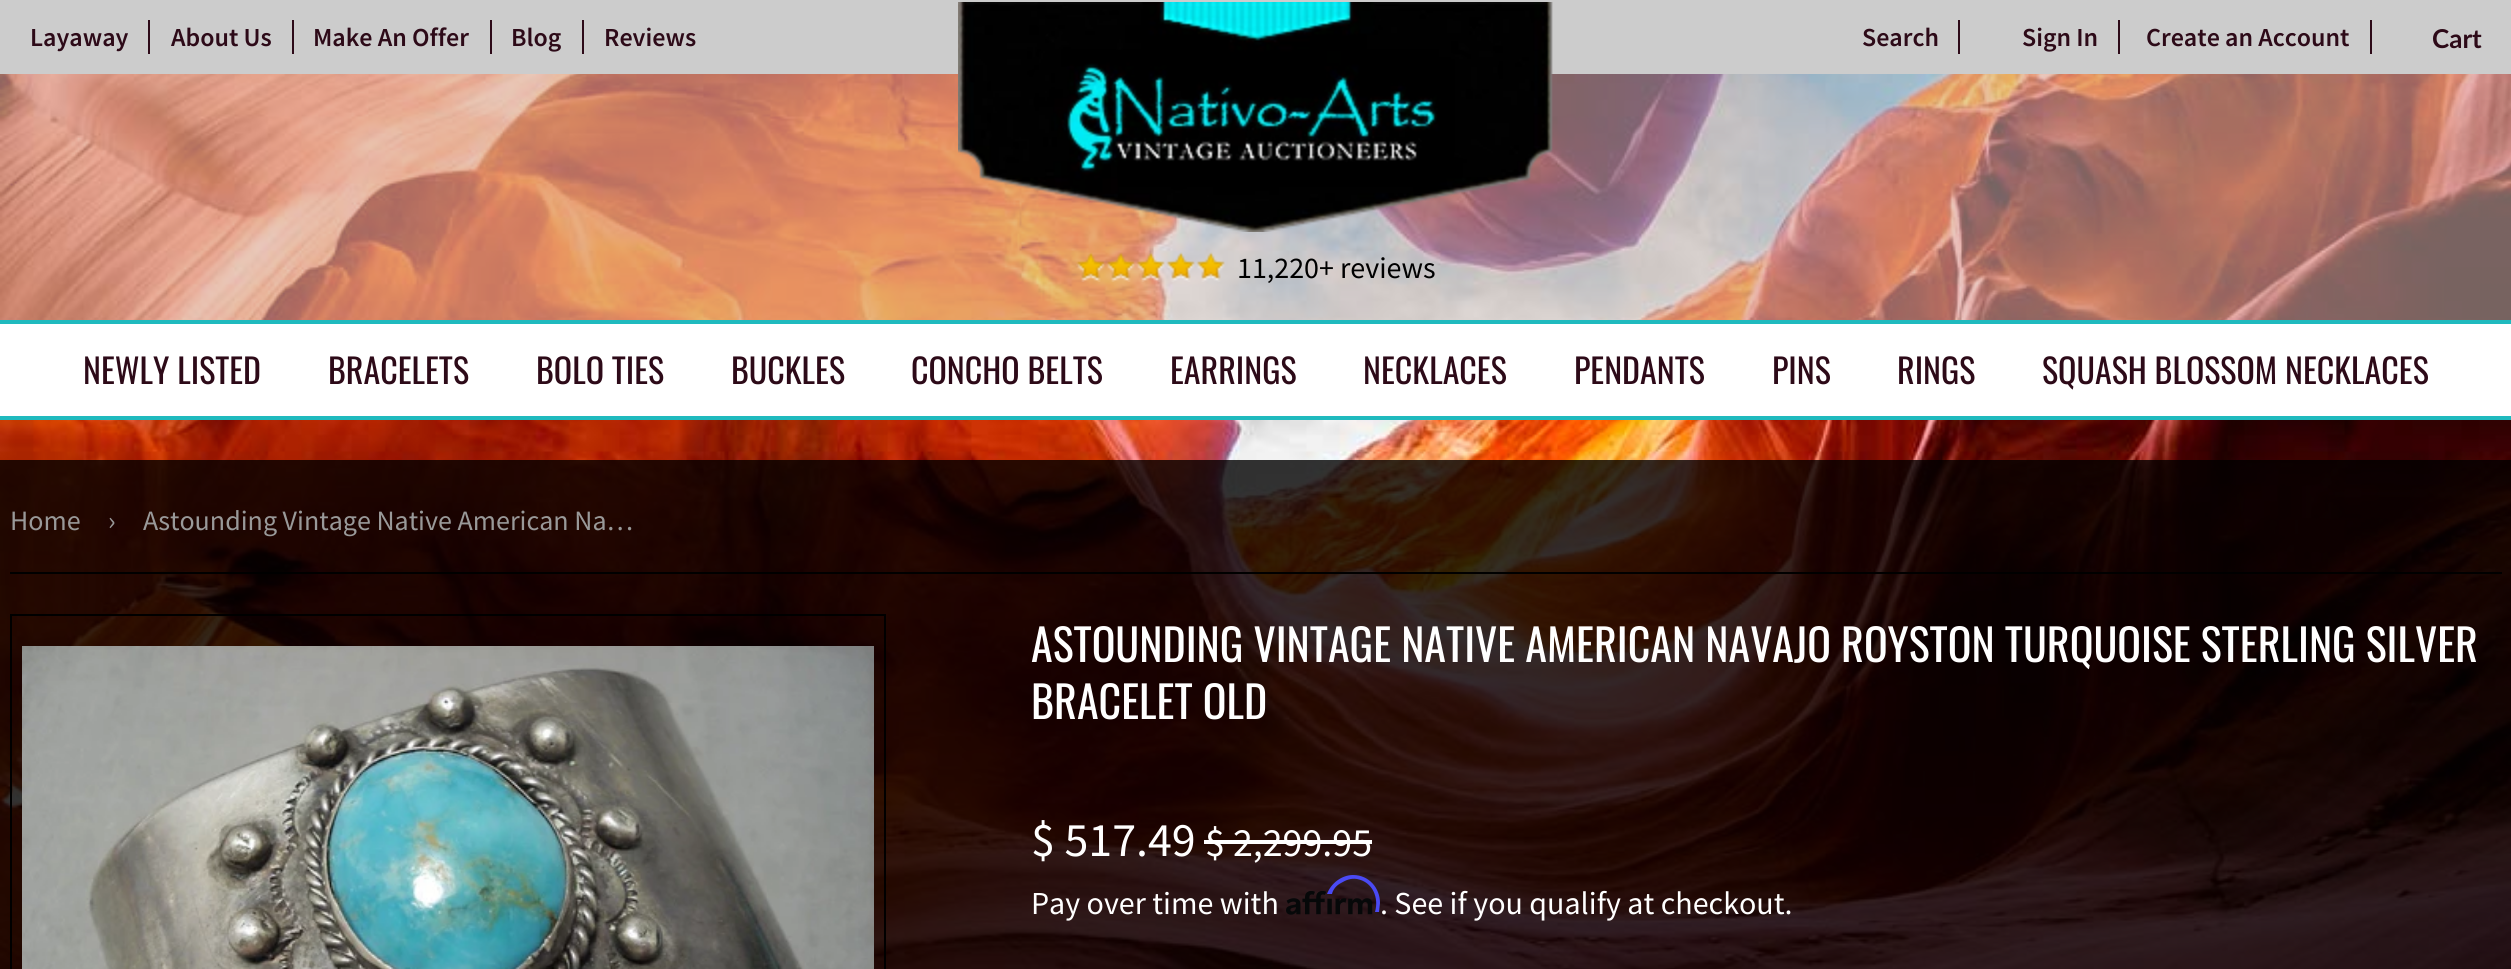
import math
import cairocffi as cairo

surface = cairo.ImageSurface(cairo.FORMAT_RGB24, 2511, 969)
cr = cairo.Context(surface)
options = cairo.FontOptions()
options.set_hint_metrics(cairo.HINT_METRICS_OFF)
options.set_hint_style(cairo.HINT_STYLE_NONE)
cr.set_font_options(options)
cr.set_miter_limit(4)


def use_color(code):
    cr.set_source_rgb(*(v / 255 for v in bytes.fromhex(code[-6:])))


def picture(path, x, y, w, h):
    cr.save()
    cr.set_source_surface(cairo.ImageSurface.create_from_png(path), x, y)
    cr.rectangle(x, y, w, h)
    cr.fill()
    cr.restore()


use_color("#ffffff")
cr.paint()
picture("img3.png", 0, 74, 2511, 895)
cr.set_source_rgba(0.835, 0.776, 0.757, 0.5)
cr.rectangle(0, 74, 2511, 246)
cr.fill()
use_color("#cccccc")
cr.rectangle(0, 0, 2511, 74)
cr.fill()
cr.select_font_face("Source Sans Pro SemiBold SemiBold")
cr.set_font_size(26)
use_color("#2d0a18")
cr.move_to(30, 46)
cr.show_text("Layaway")
cr.rectangle(148, 20, 2, 34)
cr.fill()
cr.move_to(171, 46)
cr.show_text("About Us")
cr.rectangle(292, 20, 2, 34)
cr.fill()
cr.move_to(313, 46)
cr.show_text("Make An Offer")
cr.rectangle(490, 20, 2, 34)
cr.fill()
cr.move_to(511, 46)
cr.show_text("Blog")
cr.rectangle(582, 20, 2, 34)
cr.fill()
cr.move_to(604, 46)
cr.show_text("Reviews")
cr.move_to(1862, 46)
cr.show_text("Search")
cr.rectangle(1958, 20, 2, 34)
cr.fill()
cr.move_to(2022, 46)
cr.show_text("Sign In")
cr.rectangle(2118, 20, 2, 34)
cr.fill()
cr.move_to(2146, 46)
cr.show_text("Create an Account")
cr.rectangle(2370, 20, 2, 34)
cr.fill()
cr.select_font_face("Lato", cairo.FONT_SLANT_NORMAL, cairo.FONT_WEIGHT_BOLD)
cr.move_to(2432, 48)
cr.show_text("Cart")
picture("img1.png", 958, 2, 595, 230)
picture("img2.png", 1076, 252, 149, 30)
cr.select_font_face("Source Sans Pro")
cr.set_font_size(30)
use_color("#000000")
cr.move_to(1237, 278)
cr.show_text("11,220+ reviews")
use_color("#ffffff")
cr.rectangle(0, 324, 2511, 92)
cr.fill()
use_color("#20babe")
cr.rectangle(0, 320, 2511, 4)
cr.fill()
cr.rectangle(0, 416, 2511, 4)
cr.fill()
cr.select_font_face("Oswald")
cr.set_font_size(34)
use_color("#2d0a18")
cr.move_to(83, 384)
cr.show_text("NEWLY LISTED")
cr.move_to(328, 384)
cr.show_text("BRACELETS")
cr.move_to(536, 384)
cr.show_text("BOLO TIES")
cr.move_to(731, 384)
cr.show_text("BUCKLES")
cr.move_to(911, 384)
cr.show_text("CONCHO BELTS")
cr.move_to(1170, 384)
cr.show_text("EARRINGS")
cr.move_to(1363, 384)
cr.show_text("NECKLACES")
cr.move_to(1574, 384)
cr.show_text("PENDANTS")
cr.move_to(1772, 384)
cr.show_text("PINS")
cr.move_to(1897, 384)
cr.show_text("RINGS")
cr.move_to(2042, 384)
cr.show_text("SQUASH BLOSSOM NECKLACES")
cr.set_source_rgba(0, 0, 0, 0.8)
cr.rectangle(0, 460, 2511, 509)
cr.fill()
use_color("#000000")
cr.rectangle(10, 572, 2492, 2)
cr.fill()
cr.select_font_face("Source Sans Pro")
cr.set_font_size(28)
use_color("#999999")
cr.move_to(10, 530)
cr.show_text("Home")
cr.move_to(108, 530)
cr.show_text("›")
cr.move_to(143, 530)
cr.show_text("Astounding Vintage Native American Na…")
cr.rectangle(11, 615, 874, 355)
use_color("#000000")
cr.stroke()
picture("img4.png", 22, 646, 852, 323)
cr.select_font_face("Oswald")
cr.set_font_size(44)
use_color("#ffffff")
cr.move_to(1031, 662)
cr.show_text("ASTOUNDING VINTAGE NATIVE AMERICAN NAVAJO ROYSTON TURQUOISE STERLING SILVER")
cr.move_to(1031, 719)
cr.show_text("BRACELET OLD")
cr.select_font_face("Source Sans Pro")
cr.set_font_size(48)
cr.move_to(1031, 856)
cr.show_text("$ 517.49")
cr.set_font_size(40)
cr.move_to(1205, 856)
cr.show_text("$ 2,299.95")
cr.rectangle(1204, 840, 168, 4)
cr.fill()
cr.set_font_size(32)
cr.move_to(1031, 914)
cr.show_text("Pay over time with")
picture("img5.png", 1286, 891, 87, 24)
use_color("#4a4af4")
cr.new_path()
cr.move_to(1353, 875)
cr.curve_to(1342, 875, 1331, 883, 1327, 894)
cr.line_to(1332, 894)
cr.curve_to(1333, 889, 1337, 885, 1341, 883)
cr.curve_to(1346, 880, 1351, 878, 1357, 879)
cr.curve_to(1373, 882, 1379, 898, 1375, 912)
cr.line_to(1379, 912)
cr.line_to(1380, 903)
cr.curve_to(1380, 888, 1369, 875, 1353, 875)
cr.close_path()
cr.fill()
use_color("#ffffff")
cr.move_to(1380, 914)
cr.show_text(". See if you qualify at checkout.")
surface.write_to_png("result.png")
